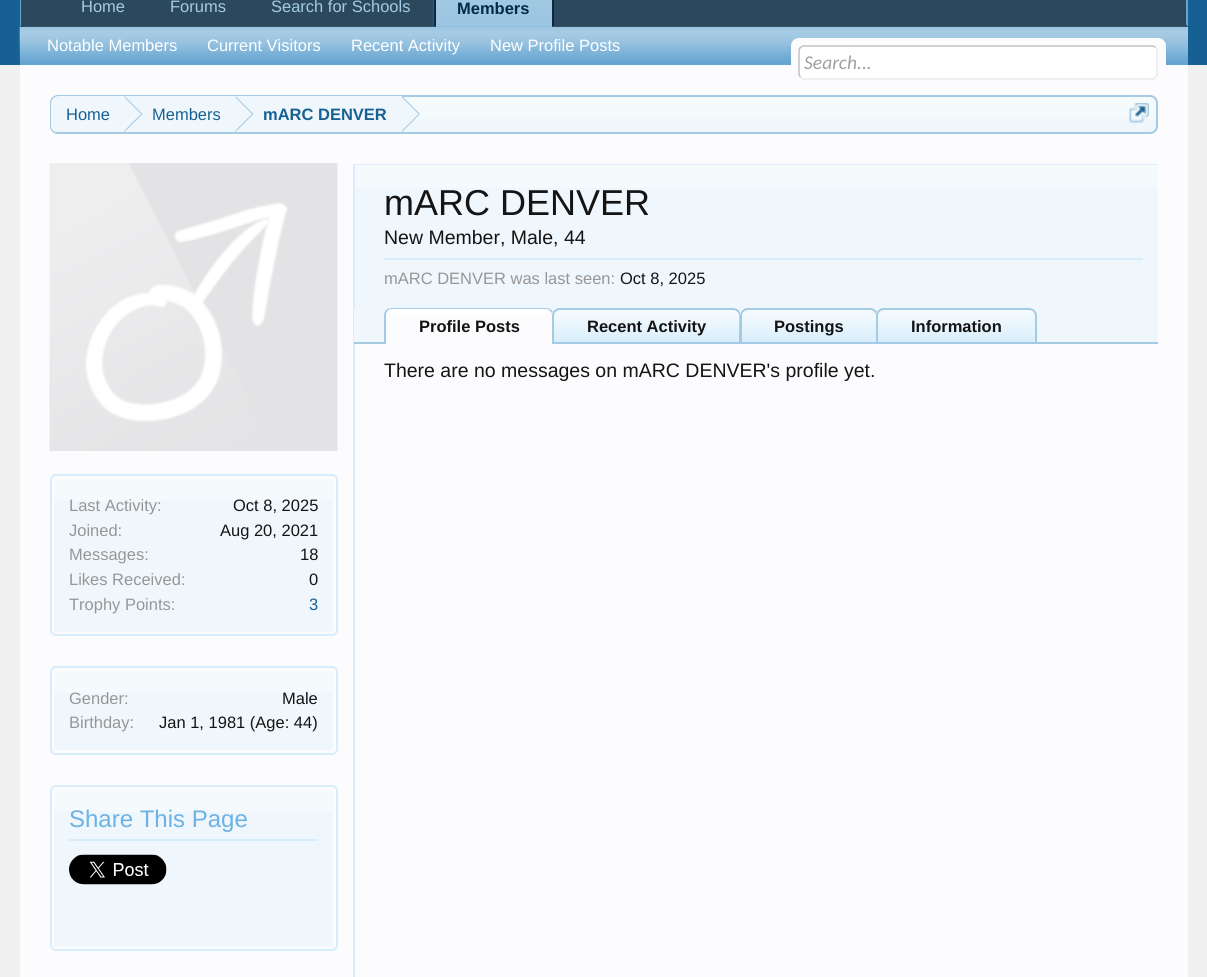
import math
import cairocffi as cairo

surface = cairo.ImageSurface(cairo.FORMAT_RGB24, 1207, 977)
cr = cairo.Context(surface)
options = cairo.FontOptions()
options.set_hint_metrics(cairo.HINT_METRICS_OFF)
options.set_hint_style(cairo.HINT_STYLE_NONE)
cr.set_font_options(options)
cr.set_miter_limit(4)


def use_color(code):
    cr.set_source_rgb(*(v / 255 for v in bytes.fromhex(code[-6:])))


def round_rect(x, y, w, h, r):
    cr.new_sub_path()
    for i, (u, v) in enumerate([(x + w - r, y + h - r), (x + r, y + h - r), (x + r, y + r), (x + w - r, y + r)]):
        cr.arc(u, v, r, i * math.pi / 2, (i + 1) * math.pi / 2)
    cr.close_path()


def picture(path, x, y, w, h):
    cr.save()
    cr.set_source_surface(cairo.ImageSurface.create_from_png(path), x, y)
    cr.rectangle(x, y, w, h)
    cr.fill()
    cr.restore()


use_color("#f0f0f0")
cr.paint()
use_color("#176093")
cr.rectangle(0, 0, 1207, 65)
cr.fill()
use_color("#2b485c")
cr.new_path()
cr.move_to(35, -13)
cr.line_to(1173, -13)
cr.curve_to(1181.5, -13, 1188, -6.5, 1188, 2)
cr.line_to(1188, 27)
cr.line_to(20, 27)
cr.line_to(20, 2)
cr.curve_to(20, -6.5, 26.5, -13, 35, -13)
cr.close_path()
cr.fill()
use_color("#65a5d1")
cr.new_path()
cr.move_to(1188, 27)
cr.line_to(1188, 2)
cr.curve_to(1188, -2.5, 1186.5, -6.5, 1183.5, -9)
cr.line_to(1182.5, -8)
cr.curve_to(1184.5, -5.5, 1186, -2, 1186, 2)
cr.line_to(1186, 25)
cr.close_path()
cr.fill()
use_color("#032a46")
cr.new_path()
cr.move_to(1188, 27)
cr.line_to(1186, 25)
cr.line_to(1186, 26)
cr.line_to(21, 26)
cr.line_to(20, 27)
cr.close_path()
cr.fill()
use_color("#65a5d1")
cr.new_path()
cr.move_to(20, 26.5)
cr.line_to(20, 2)
cr.curve_to(20, -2.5, 21.5, -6.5, 24, -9)
cr.line_to(25, -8)
cr.curve_to(22.5, -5.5, 21, -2, 21, 2)
cr.line_to(21, 25.5)
cr.close_path()
cr.fill()
cr.select_font_face("Liberation Sans")
cr.set_font_size(16.5)
use_color("#a5cae4")
cr.move_to(81, 12)
cr.show_text("Home")
cr.move_to(170, 12)
cr.show_text("Forums")
cr.move_to(271, 12)
cr.show_text("Search for Schools")
use_color("#65a5d1")
cr.rectangle(436, 0, 116, 27)
cr.fill()
picture("img1.png", 433, 0, 119, 27)
use_color("#032a46")
cr.rectangle(552, 0, 2, 27)
cr.fill()
cr.rectangle(434, 0, 2, 27)
cr.fill()
cr.select_font_face("Liberation Sans", cairo.FONT_SLANT_NORMAL, cairo.FONT_WEIGHT_BOLD)
cr.move_to(457, 14)
cr.show_text("Members")
use_color("#65a5d1")
cr.rectangle(20, 27, 1168, 38)
cr.fill()
picture("img2.png", 19, 26, 1169, 36)
cr.select_font_face("Liberation Sans")
use_color("#ffffff")
cr.move_to(47, 51)
cr.show_text("Notable Members")
cr.move_to(207, 51)
cr.show_text("Current Visitors")
cr.move_to(351, 51)
cr.show_text("Recent Activity")
cr.move_to(490, 51)
cr.show_text("New Profile Posts")
use_color("#fcfcff")
cr.rectangle(20, 65, 1168, 912)
cr.fill()
round_rect(791, 38, 375, 42, 8)
cr.fill()
cr.rectangle(791, 45, 375, 1)
cr.fill()
use_color("#ffffff")
round_rect(798, 45, 360, 35, 6)
cr.fill()
cr.new_path()
cr.move_to(1155.5, 47.5)
cr.curve_to(1156.5, 48.5, 1157, 49.5, 1157, 51)
cr.line_to(1157, 73.5)
cr.curve_to(1157, 75, 1156.5, 76, 1155.5, 77)
cr.curve_to(1154.5, 78, 1153.5, 79, 1152, 79)
cr.line_to(804, 79)
cr.curve_to(802.5, 79, 801.5, 78, 800.5, 77)
use_color("#e9e9e9")
cr.set_line_width(1.5)
cr.stroke()
cr.new_path()
cr.move_to(800.5, 77)
cr.curve_to(799.5, 76, 799, 75, 799, 73.5)
cr.line_to(799, 51)
cr.curve_to(799, 49.5, 799.5, 48.5, 800.5, 47.5)
cr.curve_to(801.5, 46.5, 802.5, 46, 804, 46)
cr.line_to(1152, 46)
cr.curve_to(1153.5, 46, 1154.5, 46.5, 1155.5, 47.5)
use_color("#c0c0c0")
cr.stroke()
cr.select_font_face("Carlito", cairo.FONT_SLANT_ITALIC)
cr.set_font_size(19.5)
use_color("#a0a0a0")
cr.move_to(804, 69)
cr.show_text("Search...")
use_color("#f0f7fc")
round_rect(50, 95, 1108, 39, 8)
cr.fill()
picture("img3.png", 50, 96, 1108, 23)
round_rect(51, 96, 1106, 37, 7)
use_color("#a5cae4")
cr.set_line_width(2)
cr.stroke()
cr.save()
round_rect(51, 96, 1106, 36, 6)
cr.clip()
use_color("#f0f7fc")
cr.new_path()
cr.move_to(59, 96)
cr.line_to(125, 96)
cr.line_to(125, 134)
cr.line_to(59, 134)
cr.curve_to(54.5, 134, 51, 130.5, 51, 126)
cr.line_to(51, 104)
cr.curve_to(51, 99.5, 54.5, 96, 59, 96)
cr.close_path()
cr.fill()
cr.restore()
cr.select_font_face("Liberation Sans")
cr.set_font_size(16.5)
use_color("#176093")
cr.move_to(66, 120)
cr.show_text("Home")
use_color("#f0f7fc")
cr.rectangle(125, 96, 277, 23)
cr.fill()
use_color("#a5cae4")
cr.new_path()
cr.move_to(124.5, 132)
cr.line_to(124.5, 96)
cr.line_to(142.5, 114)
cr.close_path()
cr.fill()
use_color("#f0f7fc")
cr.new_path()
cr.move_to(123, 132)
cr.line_to(123, 96)
cr.line_to(141, 114)
cr.close_path()
cr.fill()
use_color("#176093")
cr.move_to(152, 120)
cr.show_text("Members")
use_color("#a5cae4")
cr.new_path()
cr.move_to(235.5, 132)
cr.line_to(235.5, 96)
cr.line_to(253.5, 114)
cr.close_path()
cr.fill()
use_color("#f0f7fc")
cr.new_path()
cr.move_to(234, 132)
cr.line_to(234, 96)
cr.line_to(252, 114)
cr.close_path()
cr.fill()
cr.select_font_face("Liberation Sans", cairo.FONT_SLANT_NORMAL, cairo.FONT_WEIGHT_BOLD)
use_color("#176093")
cr.move_to(263, 120)
cr.show_text("mARC DENVER")
use_color("#a5cae4")
cr.new_path()
cr.move_to(402, 132)
cr.line_to(402, 96)
cr.line_to(420, 114)
cr.close_path()
cr.fill()
use_color("#f0f7fc")
cr.new_path()
cr.move_to(400.5, 132)
cr.line_to(400.5, 96)
cr.line_to(418.5, 114)
cr.close_path()
cr.fill()
picture("img4.png", 1129, 103, 20, 20)
use_color("#d7edfc")
cr.rectangle(354, 164, 804, 1)
cr.fill()
use_color("#f0f7fc")
cr.rectangle(355, 165, 803, 143)
cr.fill()
picture("img5.png", 355, 164, 803, 24)
cr.select_font_face("Liberation Sans")
cr.set_font_size(36)
use_color("#141414")
cr.move_to(384, 215)
cr.show_text("mARC DENVER")
cr.set_font_size(19.5)
cr.move_to(384, 244)
cr.show_text("New Member, Male, 44")
use_color("#d7edfc")
cr.rectangle(384, 258, 759, 2)
cr.fill()
cr.set_font_size(16.5)
use_color("#969696")
cr.move_to(384, 284)
cr.show_text("mARC DENVER was last seen:")
use_color("#141414")
cr.move_to(620, 284)
cr.show_text("Oct 8, 2025")
use_color("#d7edfc")
cr.rectangle(353, 164, 2, 813)
cr.fill()
use_color("#f0f7fc")
cr.rectangle(354, 308, 804, 34)
cr.fill()
use_color("#a5cae4")
cr.rectangle(354, 342, 804, 2)
cr.fill()
use_color("#fcfcff")
cr.new_path()
cr.move_to(392, 308)
cr.line_to(546, 308)
cr.curve_to(550.5, 308, 554, 311.5, 554, 316)
cr.line_to(554, 344)
cr.line_to(384, 344)
cr.line_to(384, 316)
cr.curve_to(384, 311.5, 387.5, 308, 392, 308)
cr.close_path()
cr.fill()
picture("img6.png", 384, 308, 169, 6)
use_color("#a5cae4")
cr.set_fill_rule(cairo.FILL_RULE_EVEN_ODD)
cr.new_path()
cr.move_to(392, 308)
cr.line_to(546, 308)
cr.curve_to(550, 308, 554, 311, 554, 315)
cr.line_to(554, 344)
cr.line_to(384, 344)
cr.line_to(384, 315)
cr.curve_to(384, 311, 387, 308, 392, 308)
cr.close_path()
cr.move_to(392, 309)
cr.line_to(546, 309)
cr.curve_to(549, 309, 552, 312, 552, 315)
cr.line_to(552, 344)
cr.line_to(386, 344)
cr.line_to(386, 315)
cr.curve_to(386, 312, 388, 309, 392, 309)
cr.close_path()
cr.fill()
cr.select_font_face("Liberation Sans", cairo.FONT_SLANT_NORMAL, cairo.FONT_WEIGHT_BOLD)
use_color("#141414")
cr.move_to(419, 332)
cr.show_text("Profile Posts")
use_color("#d7edfc")
cr.new_path()
cr.move_to(560, 308)
cr.line_to(733, 308)
cr.curve_to(737.5, 308, 741, 311.5, 741, 316)
cr.line_to(741, 344)
cr.line_to(552, 344)
cr.line_to(552, 316)
cr.curve_to(552, 311.5, 555.5, 308, 560, 308)
cr.close_path()
cr.fill()
picture("img7.png", 552, 308, 189, 32)
cr.new_path()
cr.move_to(560, 309)
cr.line_to(733, 309)
cr.curve_to(737, 309, 740, 312, 740, 316)
cr.line_to(740, 343)
cr.line_to(553, 343)
cr.line_to(553, 316)
cr.curve_to(553, 312, 556, 309, 560, 309)
cr.close_path()
use_color("#a5cae4")
cr.stroke()
use_color("#141414")
cr.move_to(587, 332)
cr.show_text("Recent Activity")
use_color("#d7edfc")
cr.new_path()
cr.move_to(748, 308)
cr.line_to(870, 308)
cr.curve_to(874.5, 308, 878, 311.5, 878, 316)
cr.line_to(878, 344)
cr.line_to(740, 344)
cr.line_to(740, 316)
cr.curve_to(740, 311.5, 743.5, 308, 748, 308)
cr.close_path()
cr.fill()
picture("img8.png", 739, 308, 139, 32)
cr.new_path()
cr.move_to(748, 309)
cr.line_to(870, 309)
cr.curve_to(874, 309, 877, 312, 877, 316)
cr.line_to(877, 343)
cr.line_to(741, 343)
cr.line_to(741, 316)
cr.curve_to(741, 312, 744, 309, 748, 309)
cr.close_path()
use_color("#a5cae4")
cr.stroke()
use_color("#141414")
cr.move_to(774, 332)
cr.show_text("Postings")
use_color("#d7edfc")
cr.new_path()
cr.move_to(884, 308)
cr.line_to(1029, 308)
cr.curve_to(1033.5, 308, 1037, 311.5, 1037, 316)
cr.line_to(1037, 344)
cr.line_to(876, 344)
cr.line_to(876, 316)
cr.curve_to(876, 311.5, 879.5, 308, 884, 308)
cr.close_path()
cr.fill()
picture("img9.png", 876, 308, 161, 32)
cr.new_path()
cr.move_to(884, 309)
cr.line_to(1029, 309)
cr.curve_to(1033, 309, 1036, 312, 1036, 316)
cr.line_to(1036, 343)
cr.line_to(877, 343)
cr.line_to(877, 316)
cr.curve_to(877, 312, 880, 309, 884, 309)
cr.close_path()
use_color("#a5cae4")
cr.stroke()
use_color("#141414")
cr.move_to(911, 332)
cr.show_text("Information")
cr.select_font_face("Liberation Sans")
cr.set_font_size(19.5)
cr.move_to(384, 377)
cr.show_text("There are no messages on mARC DENVER's profile yet.")
picture("img10.png", 49, 163, 289, 288)
round_rect(51, 475, 286, 160, 5)
use_color("#d7edfc")
cr.stroke()
use_color("#f0f7fc")
cr.rectangle(54, 479, 279, 153)
cr.fill()
picture("img11.png", 54, 479, 279, 22)
cr.set_font_size(16.5)
use_color("#969696")
cr.move_to(69, 511)
cr.show_text("Last Activity:")
use_color("#141414")
cr.move_to(233, 511)
cr.show_text("Oct 8, 2025")
use_color("#969696")
cr.move_to(69, 536)
cr.show_text("Joined:")
use_color("#141414")
cr.move_to(220, 536)
cr.show_text("Aug 20, 2021")
use_color("#969696")
cr.move_to(69, 560)
cr.show_text("Messages:")
use_color("#141414")
cr.move_to(300, 560)
cr.show_text("18")
use_color("#969696")
cr.move_to(69, 585)
cr.show_text("Likes Received:")
use_color("#141414")
cr.move_to(309, 585)
cr.show_text("0")
use_color("#969696")
cr.move_to(69, 610)
cr.show_text("Trophy Points:")
use_color("#176093")
cr.move_to(309, 610)
cr.show_text("3")
round_rect(51, 667, 286, 87, 5)
use_color("#d7edfc")
cr.stroke()
use_color("#f0f7fc")
cr.rectangle(54, 671, 279, 79)
cr.fill()
picture("img12.png", 54, 671, 279, 22)
use_color("#969696")
cr.move_to(69, 704)
cr.show_text("Gender:")
use_color("#141414")
cr.move_to(282, 704)
cr.show_text("Male")
use_color("#969696")
cr.move_to(69, 728)
cr.show_text("Birthday:")
use_color("#141414")
cr.move_to(159, 728)
cr.show_text("Jan 1, 1981 (Age: 44)")
round_rect(51, 786, 286, 164, 5)
use_color("#d7edfc")
cr.stroke()
use_color("#f0f7fc")
cr.rectangle(54, 789, 279, 158)
cr.fill()
picture("img13.png", 54, 789, 279, 23)
use_color("#d7edfc")
cr.rectangle(69, 839, 249, 2)
cr.fill()
cr.set_font_size(24)
use_color("#6cb2e4")
cr.move_to(69, 827)
cr.show_text("Share This Page")
picture("img14.png", 69, 854, 98, 31)
surface.write_to_png("result.png")
